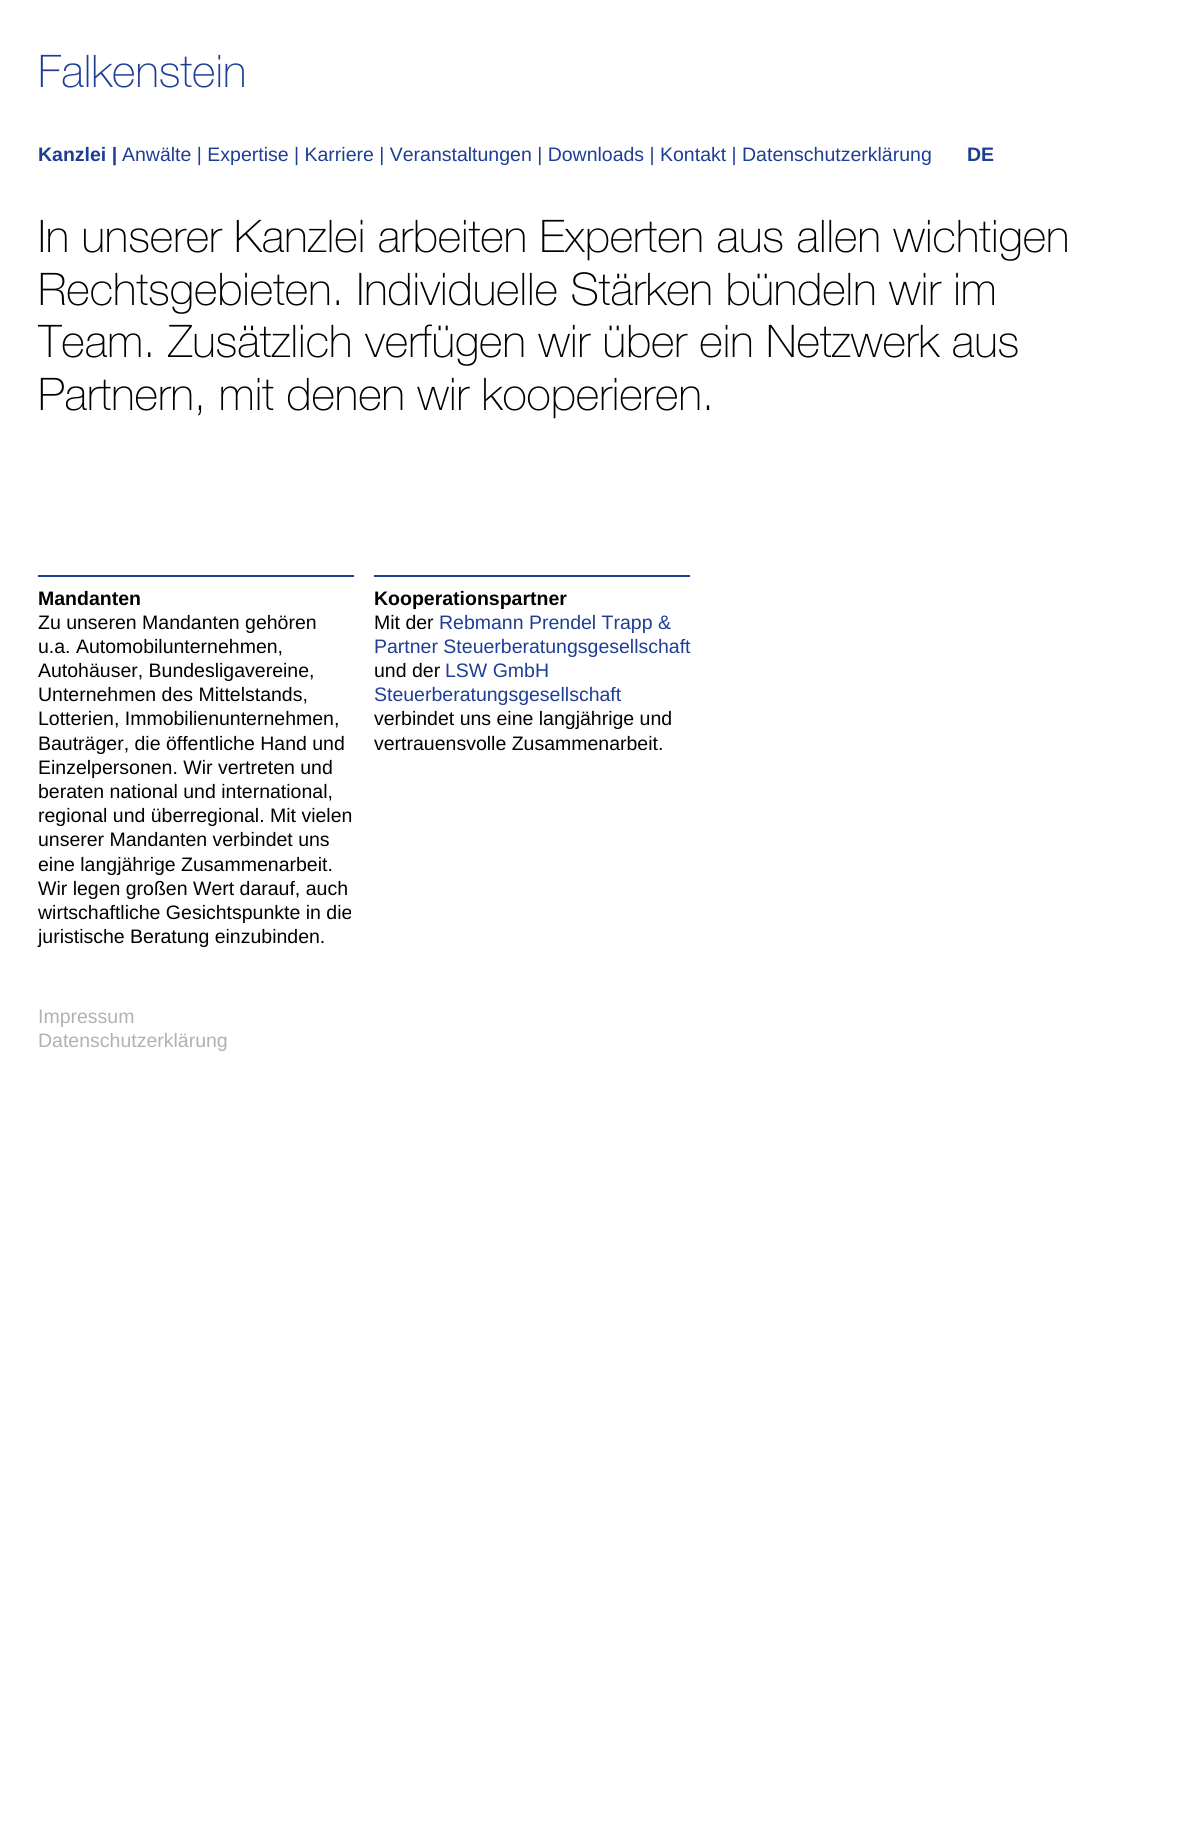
import math
import cairocffi as cairo

surface = cairo.ImageSurface(cairo.FORMAT_RGB24, 1177, 1845)
cr = cairo.Context(surface)
options = cairo.FontOptions()
options.set_hint_metrics(cairo.HINT_METRICS_OFF)
options.set_hint_style(cairo.HINT_STYLE_NONE)
cr.set_font_options(options)
cr.set_miter_limit(4)


def use_color(code):
    cr.set_source_rgb(*(v / 255 for v in bytes.fromhex(code[-6:])))


use_color("#ffffff")
cr.paint()
cr.select_font_face("Helvetica Neue ExtraLight")
cr.set_font_size(45)
use_color("#1e3e95")
cr.move_to(38, 87)
cr.show_text("Falkenstein")
cr.select_font_face("Liberation Sans", cairo.FONT_SLANT_NORMAL, cairo.FONT_WEIGHT_BOLD)
cr.set_font_size(19.5)
cr.move_to(38, 161)
cr.show_text("Kanzlei |")
cr.select_font_face("Liberation Sans")
cr.move_to(122, 161)
cr.show_text("Anwälte | Expertise | Karriere | Veranstaltungen | Downloads | Kontakt | Datenschutzerklärung")
cr.select_font_face("Liberation Sans", cairo.FONT_SLANT_NORMAL, cairo.FONT_WEIGHT_BOLD)
cr.move_to(967, 161)
cr.show_text("DE")
cr.select_font_face("Helvetica Neue ExtraLight")
cr.set_font_size(45)
use_color("#000000")
cr.move_to(38, 252)
cr.show_text("In unserer Kanzlei arbeiten Experten aus allen wichtigen")
cr.move_to(38, 305)
cr.show_text("Rechtsgebieten. Individuelle Stärken bündeln wir im")
cr.save()
cr.rectangle(38, 210, 1077, 267)
cr.clip()
cr.move_to(38, 357)
cr.show_text("Team. Zusätzlich verfügen wir über ein Netzwerk aus")
cr.restore()
cr.move_to(38, 410)
cr.show_text("Partnern, mit denen wir kooperieren.")
use_color("#1e3e95")
cr.rectangle(38, 575, 316, 2)
cr.fill()
cr.select_font_face("Liberation Sans", cairo.FONT_SLANT_NORMAL, cairo.FONT_WEIGHT_BOLD)
cr.set_font_size(19.5)
use_color("#000000")
cr.move_to(38, 605)
cr.show_text("Mandanten")
cr.select_font_face("Liberation Sans")
cr.move_to(38, 629)
cr.show_text("Zu unseren Mandanten gehören")
cr.move_to(38, 653)
cr.show_text("u.a. Automobilunternehmen,")
cr.move_to(38, 677)
cr.show_text("Autohäuser, Bundesligavereine,")
cr.move_to(38, 701)
cr.show_text("Unternehmen des Mittelstands,")
cr.move_to(38, 725)
cr.show_text("Lotterien, Immobilienunternehmen,")
cr.move_to(38, 750)
cr.show_text("Bauträger, die öffentliche Hand und")
cr.move_to(38, 774)
cr.show_text("Einzelpersonen. Wir vertreten und")
cr.move_to(38, 798)
cr.show_text("beraten national und international,")
cr.move_to(38, 822)
cr.show_text("regional und überregional. Mit vielen")
cr.move_to(38, 846)
cr.show_text("unserer Mandanten verbindet uns")
cr.move_to(38, 871)
cr.show_text("eine langjährige Zusammenarbeit.")
cr.move_to(38, 895)
cr.show_text("Wir legen großen Wert darauf, auch")
cr.move_to(38, 919)
cr.show_text("wirtschaftliche Gesichtspunkte in die")
cr.move_to(38, 943)
cr.show_text("juristische Beratung einzubinden.")
use_color("#b1b1b1")
cr.move_to(38, 1023)
cr.show_text("Impressum")
cr.move_to(38, 1047)
cr.show_text("Datenschutzerklärung")
use_color("#1e3e95")
cr.rectangle(374, 575, 316, 2)
cr.fill()
cr.select_font_face("Liberation Sans", cairo.FONT_SLANT_NORMAL, cairo.FONT_WEIGHT_BOLD)
use_color("#000000")
cr.move_to(374, 605)
cr.show_text("Kooperationspartner")
cr.select_font_face("Liberation Sans")
cr.move_to(374, 629)
cr.show_text("Mit der")
use_color("#1e3e95")
cr.move_to(439, 629)
cr.show_text("Rebmann Prendel Trapp &")
cr.move_to(374, 653)
cr.show_text("Partner Steuerberatungsgesellschaft")
use_color("#000000")
cr.move_to(374, 677)
cr.show_text("und der")
use_color("#1e3e95")
cr.move_to(445, 677)
cr.show_text("LSW GmbH")
cr.move_to(374, 701)
cr.show_text("Steuerberatungsgesellschaft")
use_color("#000000")
cr.move_to(374, 725)
cr.show_text("verbindet uns eine langjährige und")
cr.move_to(374, 750)
cr.show_text("vertrauensvolle Zusammenarbeit.")
surface.write_to_png("result.png")
